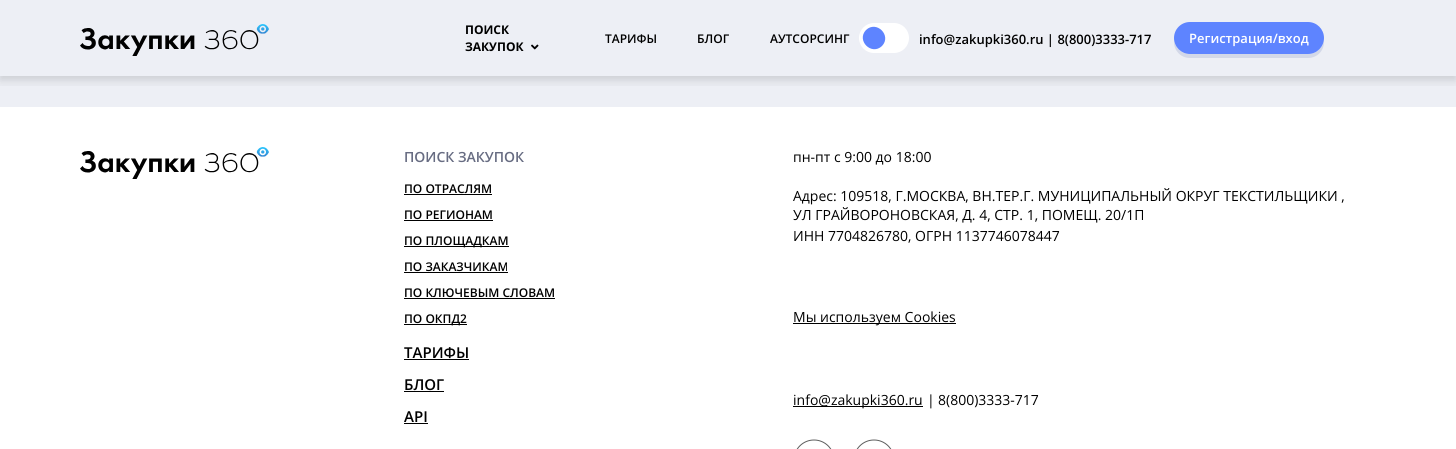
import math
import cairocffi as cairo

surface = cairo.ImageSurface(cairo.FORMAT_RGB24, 1456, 449)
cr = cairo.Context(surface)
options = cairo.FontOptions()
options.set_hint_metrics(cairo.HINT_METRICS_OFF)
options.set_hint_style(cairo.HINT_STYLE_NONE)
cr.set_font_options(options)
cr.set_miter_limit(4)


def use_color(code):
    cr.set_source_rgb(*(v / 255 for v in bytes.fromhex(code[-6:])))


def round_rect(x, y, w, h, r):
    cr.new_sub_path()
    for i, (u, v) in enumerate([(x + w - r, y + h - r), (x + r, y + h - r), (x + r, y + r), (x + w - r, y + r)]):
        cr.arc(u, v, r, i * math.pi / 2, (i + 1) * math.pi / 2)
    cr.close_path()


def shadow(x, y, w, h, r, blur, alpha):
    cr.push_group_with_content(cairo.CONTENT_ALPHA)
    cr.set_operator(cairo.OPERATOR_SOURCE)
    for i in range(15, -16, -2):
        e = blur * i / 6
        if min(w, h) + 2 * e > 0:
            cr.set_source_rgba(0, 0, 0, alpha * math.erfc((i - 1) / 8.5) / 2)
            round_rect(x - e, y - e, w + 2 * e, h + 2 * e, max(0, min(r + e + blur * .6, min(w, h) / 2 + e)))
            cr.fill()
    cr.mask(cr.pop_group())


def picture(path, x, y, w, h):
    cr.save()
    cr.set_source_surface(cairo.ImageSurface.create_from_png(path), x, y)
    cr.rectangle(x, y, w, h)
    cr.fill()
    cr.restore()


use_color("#edeff5")
cr.paint()
cr.save()
cr.rectangle(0, 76, 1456, 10)
cr.clip()
use_color("#000000")
shadow(0, 4, 1456, 76, 0, 5, 0.15)
cr.restore()
picture("img1.png", 80, 24, 189, 32)
cr.select_font_face("Open Sans", cairo.FONT_SLANT_NORMAL, cairo.FONT_WEIGHT_BOLD)
cr.set_font_size(12)
use_color("#000000")
cr.move_to(465, 34)
cr.show_text("ПОИСК")
cr.move_to(465, 51)
cr.show_text("ЗАКУПОК")
picture("img2.png", 531, 44, 8, 6)
cr.select_font_face("Open Sans SemiBold")
cr.move_to(605, 43)
cr.show_text("ТАРИФЫ")
cr.move_to(697, 43)
cr.show_text("БЛОГ")
cr.move_to(770, 43)
cr.show_text("АУТСОРСИНГ")
use_color("#ffffff")
round_rect(859, 23, 50, 30, 15)
cr.fill()
use_color("#5e84ff")
cr.new_path()
cr.move_to(866, 30)
cr.curve_to(876.5, 20, 892, 35.5, 882, 46)
cr.curve_to(871.5, 56, 856, 40.5, 866, 30)
cr.close_path()
cr.fill()
cr.set_font_size(13)
use_color("#000000")
cr.move_to(919, 44)
cr.show_text("info@zakupki360.ru | 8(800)3333-717")
use_color("#d3d8e8")
cr.new_path()
cr.move_to(1174, 40)
cr.line_to(1174, 42)
cr.curve_to(1174, 51, 1181, 58, 1190, 58)
cr.line_to(1308, 58)
cr.curve_to(1317, 58, 1324, 51, 1324, 42)
cr.line_to(1324, 40)
cr.curve_to(1323, 48, 1316, 54, 1308, 54)
cr.line_to(1190, 54)
cr.curve_to(1182, 54, 1175, 48, 1174, 40)
cr.close_path()
cr.fill()
use_color("#5e84ff")
round_rect(1174, 22, 150, 32, 16)
cr.fill()
use_color("#ffffff")
cr.move_to(1189, 43)
cr.show_text("Регистрация/вход")
cr.rectangle(0, 107, 1456, 342)
cr.fill()
picture("img3.png", 80, 147, 189, 32)
cr.set_font_size(14)
use_color("#676c82")
cr.move_to(404, 162)
cr.show_text("ПОИСК ЗАКУПОК")
cr.set_font_size(12)
use_color("#000000")
cr.move_to(404, 193)
cr.show_text("ПО ОТРАСЛЯМ")
cr.rectangle(404, 194, 88, 1)
cr.fill()
cr.move_to(404, 219)
cr.show_text("ПО РЕГИОНАМ")
cr.rectangle(404, 220, 89, 1)
cr.fill()
cr.rectangle(404, 246, 105, 1)
cr.fill()
cr.move_to(404, 245)
cr.show_text("ПО ПЛОЩАДКАМ")
cr.move_to(404, 271)
cr.show_text("ПО ЗАКАЗЧИКАМ")
cr.rectangle(404, 272, 104, 1)
cr.fill()
cr.move_to(404, 297)
cr.show_text("ПО КЛЮЧЕВЫМ СЛОВАМ")
cr.rectangle(404, 298, 151, 1)
cr.fill()
cr.rectangle(404, 324, 63, 1)
cr.fill()
cr.move_to(404, 323)
cr.show_text("ПО ОКПД2")
cr.set_font_size(15)
cr.move_to(404, 358)
cr.show_text("ТАРИФЫ")
cr.rectangle(404, 359, 65, 1)
cr.fill()
cr.move_to(404, 390)
cr.show_text("БЛОГ")
cr.rectangle(404, 391, 40, 1)
cr.fill()
cr.move_to(404, 422)
cr.show_text("API")
cr.rectangle(404, 423, 24, 1)
cr.fill()
cr.select_font_face("Open Sans")
cr.set_font_size(14)
cr.move_to(793, 162)
cr.show_text("пн-пт с 9:00 до 18:00")
cr.move_to(793, 201)
cr.show_text("Адрес: 109518, Г.МОСКВА, ВН.ТЕР.Г. МУНИЦИПАЛЬНЫЙ ОКРУГ ТЕКСТИЛЬЩИКИ ,")
cr.move_to(793, 220)
cr.show_text("УЛ ГРАЙВОРОНОВСКАЯ, Д. 4, СТР. 1, ПОМЕЩ. 20/1П")
cr.move_to(793, 241)
cr.show_text("ИНН 7704826780, ОГРН 1137746078447")
cr.rectangle(793, 323, 163, 1)
cr.fill()
cr.move_to(793, 322)
cr.show_text("Мы используем Cookies")
cr.rectangle(793, 406, 130, 1)
cr.fill()
cr.move_to(793, 405)
cr.show_text("info@zakupki360.ru")
cr.move_to(927, 405)
cr.show_text("|")
cr.move_to(938, 405)
cr.show_text("8(800)3333-717")
picture("img4.png", 796, 439, 36, 10)
picture("img4.png", 856, 439, 36, 10)
surface.write_to_png("result.png")
